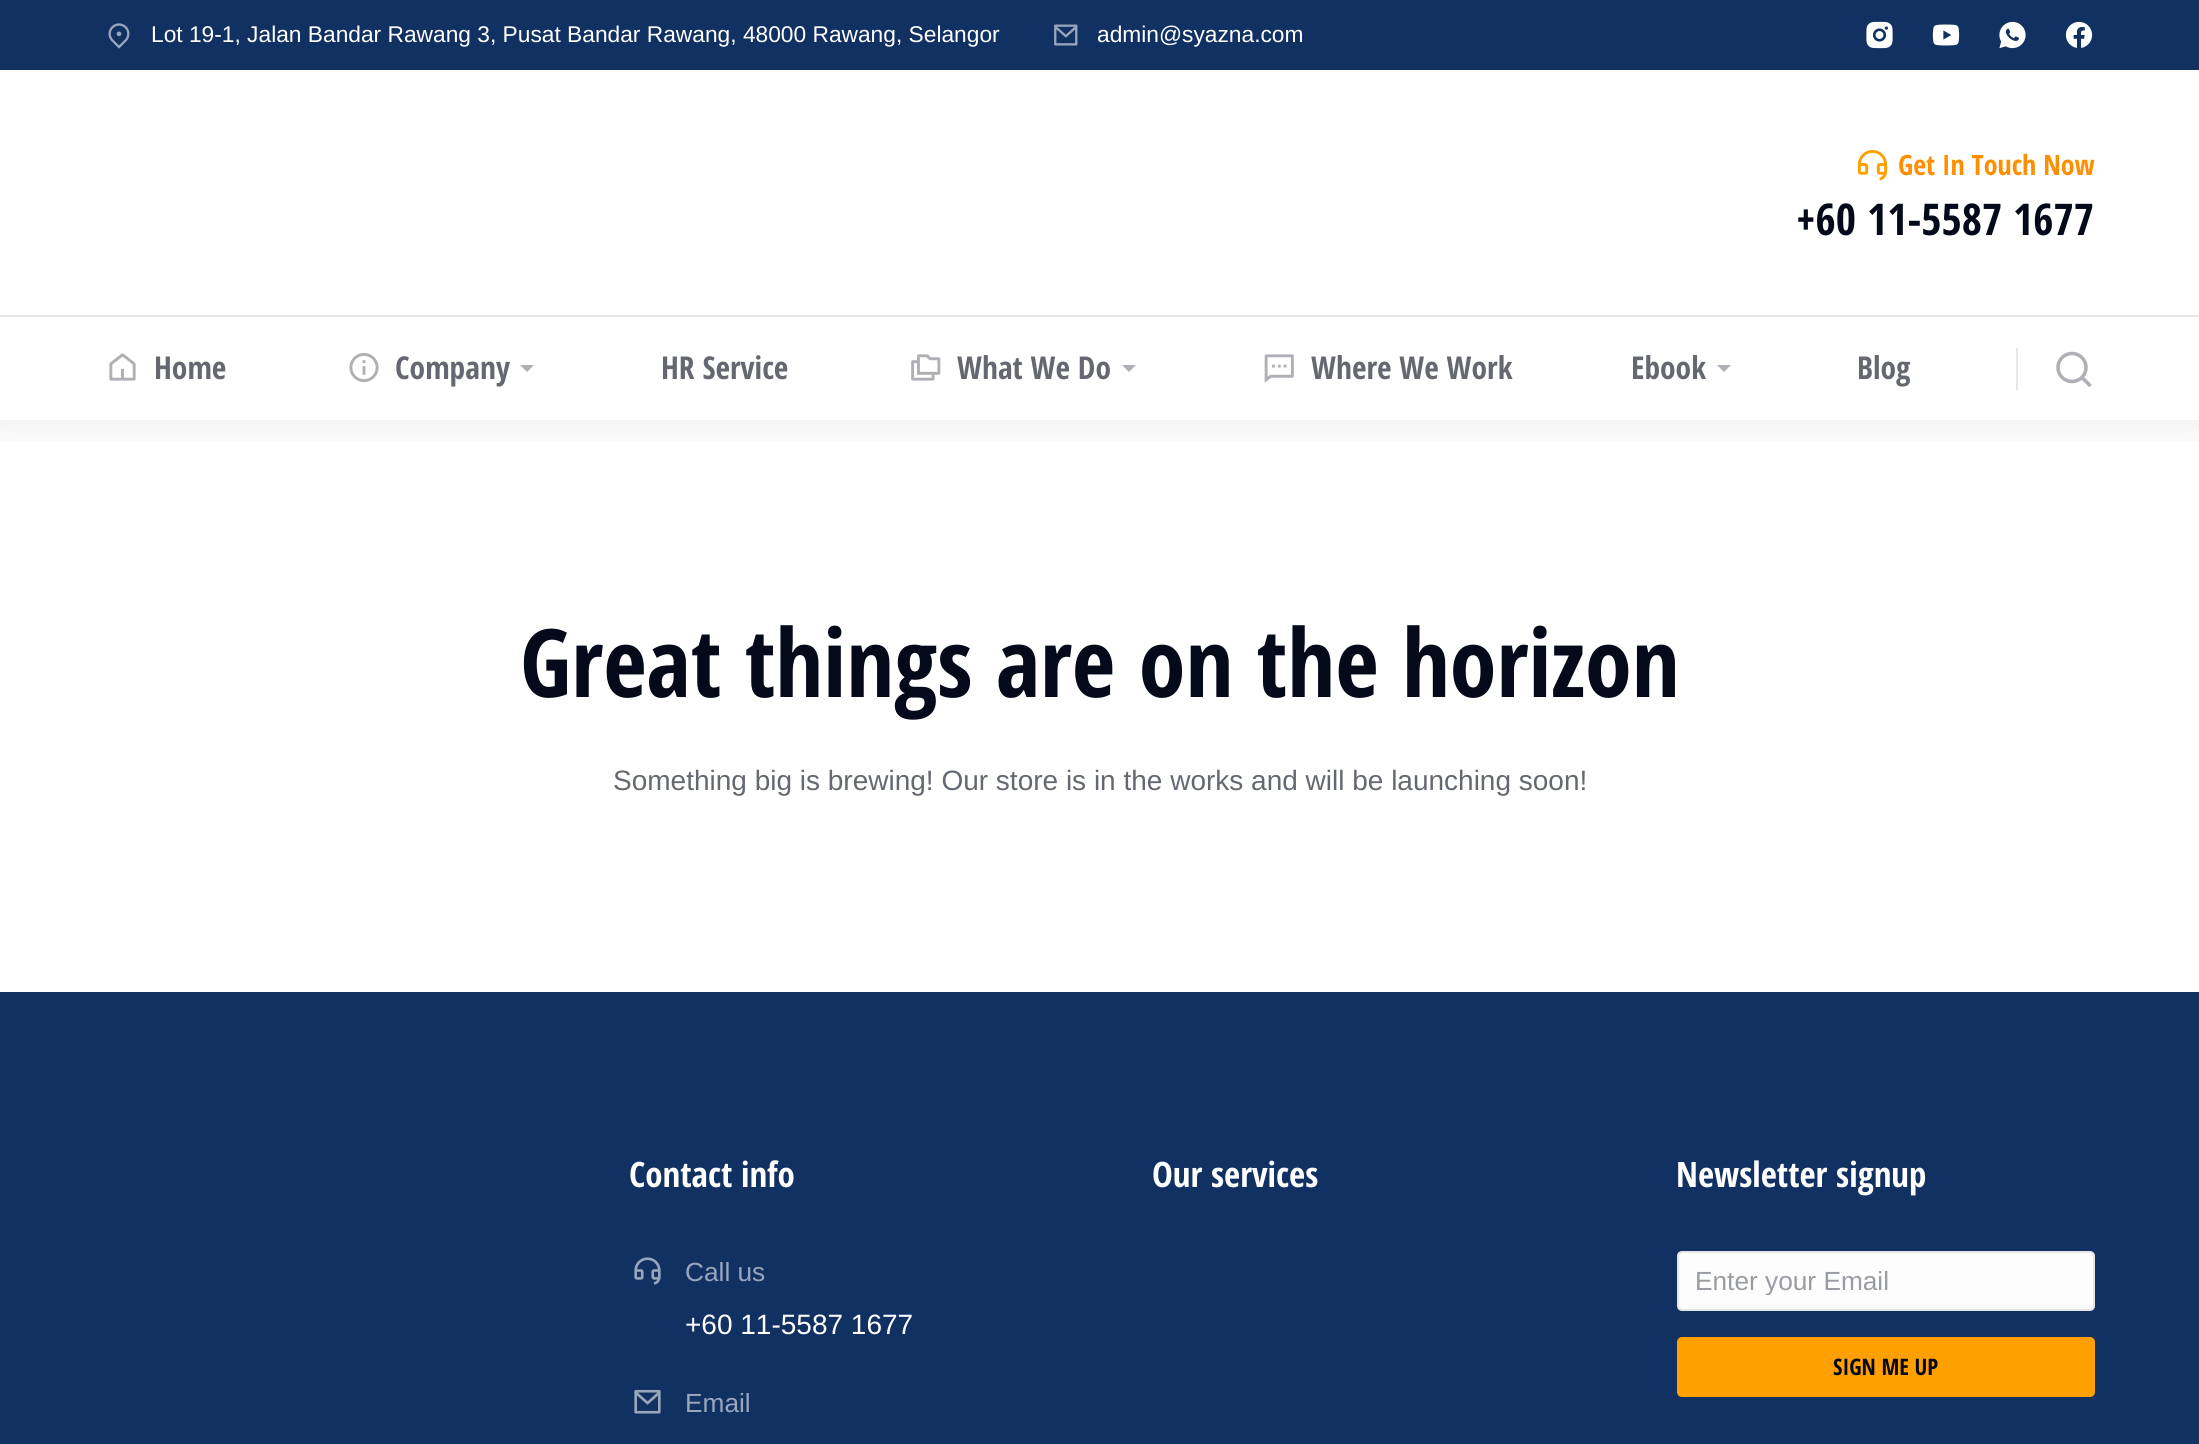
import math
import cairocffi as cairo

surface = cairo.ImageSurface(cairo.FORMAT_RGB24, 2199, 1444)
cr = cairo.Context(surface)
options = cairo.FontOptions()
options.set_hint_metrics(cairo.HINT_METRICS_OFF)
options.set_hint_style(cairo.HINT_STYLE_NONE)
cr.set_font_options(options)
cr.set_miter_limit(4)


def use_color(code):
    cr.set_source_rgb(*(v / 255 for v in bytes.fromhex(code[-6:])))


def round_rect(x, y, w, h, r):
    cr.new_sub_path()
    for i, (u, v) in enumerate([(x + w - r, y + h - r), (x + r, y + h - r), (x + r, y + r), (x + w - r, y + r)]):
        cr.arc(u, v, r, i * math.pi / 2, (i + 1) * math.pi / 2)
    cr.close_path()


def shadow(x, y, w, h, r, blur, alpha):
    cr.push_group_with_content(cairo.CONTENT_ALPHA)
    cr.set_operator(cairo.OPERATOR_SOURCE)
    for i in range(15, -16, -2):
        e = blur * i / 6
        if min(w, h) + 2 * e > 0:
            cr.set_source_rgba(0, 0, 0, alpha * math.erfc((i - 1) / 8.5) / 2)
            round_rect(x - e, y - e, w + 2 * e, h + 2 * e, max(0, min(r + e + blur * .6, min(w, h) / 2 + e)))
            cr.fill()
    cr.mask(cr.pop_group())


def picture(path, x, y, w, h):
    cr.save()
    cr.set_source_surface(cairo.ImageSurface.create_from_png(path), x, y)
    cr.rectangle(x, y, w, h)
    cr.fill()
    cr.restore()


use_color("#ffffff")
cr.paint()
use_color("#113163")
cr.rectangle(0, 0, 2199, 70)
cr.fill()
picture("img1.png", 108, 23, 22, 26)
cr.select_font_face("Liberation Sans")
cr.set_font_size(22.75)
use_color("#ffffff")
cr.move_to(151, 42)
cr.show_text("Lot 19-1, Jalan Bandar Rawang 3, Pusat Bandar Rawang, 48000 Rawang, Selangor")
picture("img2.png", 1054, 24, 24, 22)
cr.move_to(1097, 42)
cr.show_text("admin@syazna.com")
picture("img3.png", 1866, 21, 27, 28)
picture("img4.png", 1932, 24, 28, 22)
picture("img5.png", 1999, 21, 27, 28)
picture("img6.png", 2065, 21, 28, 27)
cr.save()
cr.rectangle(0, 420, 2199, 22)
cr.clip()
use_color("#000000")
shadow(0, 315, 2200, 105, 0, 26, 0.1)
cr.restore()
cr.rectangle(0, 282, 2199, 33)
cr.fill()
picture("img7.png", 1857, 149, 31, 32)
cr.select_font_face("Open Sans Condensed", cairo.FONT_SLANT_NORMAL, cairo.FONT_WEIGHT_BOLD)
cr.set_font_size(28)
use_color("#ff8f00")
cr.move_to(1898, 175)
cr.show_text("Get In Touch Now")
cr.set_font_size(43.75)
use_color("#040a19")
cr.move_to(1796, 235)
cr.show_text("+60 11-5587 1677")
use_color("#e6e7e8")
cr.rectangle(0, 315, 2199, 2)
cr.fill()
picture("img8.png", 109, 353, 27, 28)
cr.set_font_size(31.5)
use_color("#656871")
cr.move_to(154, 379)
cr.show_text("Home")
picture("img9.png", 349, 353, 30, 30)
cr.move_to(395, 379)
cr.show_text("Company")
use_color("#afb0b5")
cr.new_path()
cr.move_to(527, 372)
cr.line_to(520, 365)
cr.line_to(534, 365)
cr.close_path()
cr.fill()
use_color("#656871")
cr.move_to(661, 379)
cr.show_text("HR Service")
picture("img10.png", 911, 354, 30, 27)
cr.move_to(957, 379)
cr.show_text("What We Do")
use_color("#afb0b5")
cr.new_path()
cr.move_to(1129, 372)
cr.line_to(1122, 365)
cr.line_to(1136, 365)
cr.close_path()
cr.fill()
picture("img11.png", 1264, 354, 30, 29)
use_color("#656871")
cr.move_to(1311, 379)
cr.show_text("Where We Work")
cr.move_to(1631, 379)
cr.show_text("Ebook")
use_color("#afb0b5")
cr.new_path()
cr.move_to(1724, 372)
cr.line_to(1717, 365)
cr.line_to(1731, 365)
cr.close_path()
cr.fill()
use_color("#656871")
cr.move_to(1857, 379)
cr.show_text("Blog")
use_color("#e6e7e8")
cr.rectangle(2016, 348, 2, 42)
cr.fill()
picture("img12.png", 2056, 351, 36, 37)
cr.set_font_size(94.5)
use_color("#040a19")
cr.move_to(520, 697)
cr.show_text("Great things are on the horizon")
cr.select_font_face("Liberation Sans")
cr.set_font_size(28)
use_color("#656871")
cr.move_to(613, 790)
cr.show_text("Something big is brewing! Our store is in the works and will be launching soon!")
use_color("#113163")
cr.rectangle(0, 992, 2199, 452)
cr.fill()
cr.select_font_face("Open Sans Condensed", cairo.FONT_SLANT_NORMAL, cairo.FONT_WEIGHT_BOLD)
cr.set_font_size(35)
use_color("#ffffff")
cr.move_to(629, 1187)
cr.show_text("Contact info")
picture("img13.png", 634, 1257, 27, 28)
cr.select_font_face("Liberation Sans")
cr.set_font_size(26.25)
use_color("#99a6bc")
cr.move_to(685, 1281)
cr.show_text("Call us")
cr.set_font_size(28)
use_color("#ffffff")
cr.move_to(685, 1334)
cr.show_text("+60 11-5587 1677")
picture("img14.png", 634, 1389, 27, 25)
cr.set_font_size(26.25)
use_color("#99a6bc")
cr.move_to(685, 1412)
cr.show_text("Email")
cr.select_font_face("Open Sans Condensed", cairo.FONT_SLANT_NORMAL, cairo.FONT_WEIGHT_BOLD)
cr.set_font_size(35)
use_color("#ffffff")
cr.move_to(1152, 1187)
cr.show_text("Our services")
cr.move_to(1676, 1187)
cr.show_text("Newsletter signup")
use_color("#fdfdfd")
round_rect(1677, 1251, 418, 60, 5)
cr.fill()
round_rect(1678, 1252, 416, 58, 4)
cr.set_source_rgba(0.016, 0.039, 0.098, 0.1)
cr.stroke()
cr.save()
cr.rectangle(1696, 1265, 380, 30)
cr.clip()
cr.select_font_face("Liberation Sans")
cr.set_font_size(26.25)
use_color("#999ca2")
cr.move_to(1695, 1290)
cr.show_text("Enter your Email")
cr.restore()
use_color("#ffa000")
round_rect(1677, 1337, 418, 60, 5)
cr.fill()
cr.set_font_size(22.75)
use_color("#040a19")
cr.move_to(1833, 1375)
cr.show_text("SIGN ME UP")
surface.write_to_png("result.png")
